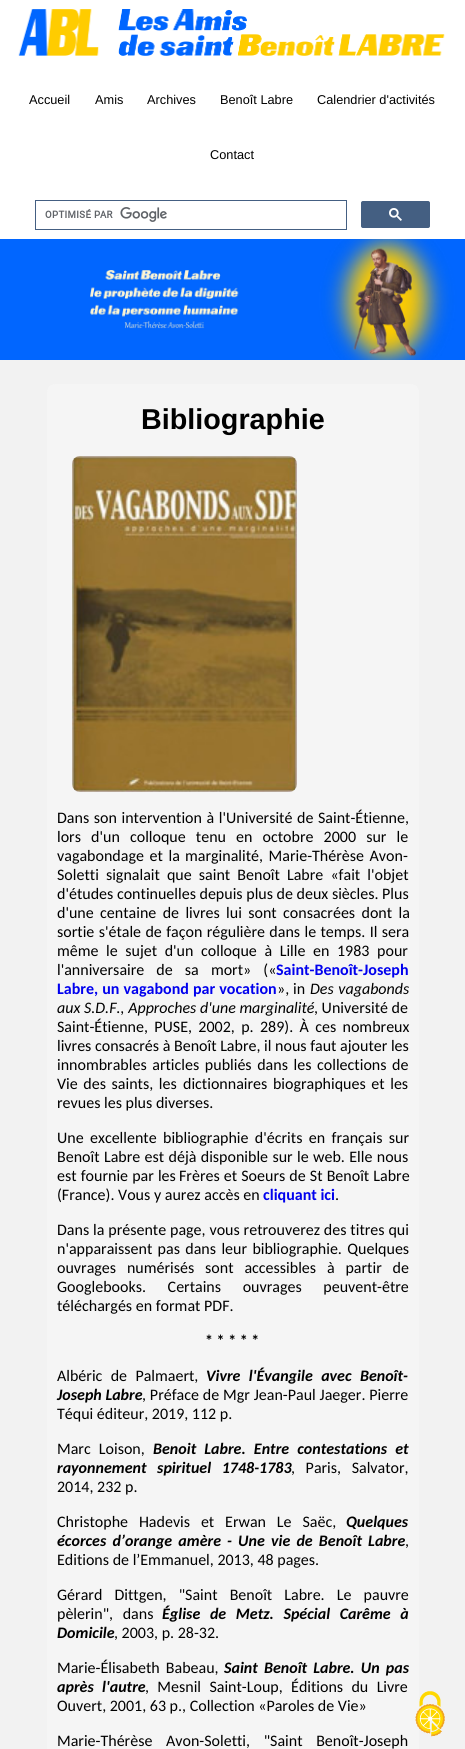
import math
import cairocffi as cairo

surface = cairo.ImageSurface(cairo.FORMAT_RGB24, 465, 1749)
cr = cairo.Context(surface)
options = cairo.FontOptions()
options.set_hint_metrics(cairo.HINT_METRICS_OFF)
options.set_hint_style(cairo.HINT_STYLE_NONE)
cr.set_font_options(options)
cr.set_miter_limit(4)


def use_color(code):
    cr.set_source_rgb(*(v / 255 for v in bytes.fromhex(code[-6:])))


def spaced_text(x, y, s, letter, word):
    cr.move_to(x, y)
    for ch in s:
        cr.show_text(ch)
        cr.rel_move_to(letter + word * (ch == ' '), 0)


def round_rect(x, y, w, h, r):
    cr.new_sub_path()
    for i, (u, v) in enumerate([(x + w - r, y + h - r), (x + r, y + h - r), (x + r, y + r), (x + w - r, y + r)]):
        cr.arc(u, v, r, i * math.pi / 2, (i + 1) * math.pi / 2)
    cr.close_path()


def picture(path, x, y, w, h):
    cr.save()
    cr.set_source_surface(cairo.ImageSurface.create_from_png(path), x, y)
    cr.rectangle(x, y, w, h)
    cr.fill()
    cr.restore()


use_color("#f2f2f2")
cr.paint()
use_color("#ffffff")
cr.rectangle(0, 0, 465, 239)
cr.fill()
picture("img1.png", 18, 9, 427, 47)
cr.select_font_face("Liberation Sans")
cr.set_font_size(12.75)
use_color("#000000")
cr.move_to(29, 104)
cr.show_text("Accueil")
cr.move_to(95, 104)
cr.show_text("Amis")
cr.move_to(147, 104)
cr.show_text("Archives")
cr.move_to(220, 104)
cr.show_text("Benoît Labre")
cr.move_to(317, 104)
cr.show_text("Calendrier d'activités")
cr.move_to(210, 159)
cr.show_text("Contact")
cr.rectangle(35.5, 200.5, 311, 29)
use_color("#445f82")
cr.set_line_width(1)
cr.stroke()
picture("img2.png", 45, 207, 122, 15)
round_rect(361.5, 201.5, 68, 26, 1.5)
cr.fill_preserve()
cr.stroke()
picture("img3.png", 389, 208, 13, 13)
picture("img4.png", 0, 239, 465, 121)
use_color("#f5f5f5")
round_rect(47, 384, 372, 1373, 8)
cr.fill()
cr.select_font_face("Liberation Sans", cairo.FONT_SLANT_NORMAL, cairo.FONT_WEIGHT_BOLD)
cr.set_font_size(28.75)
use_color("#000000")
cr.move_to(141, 429)
cr.show_text("Bibliographie")
picture("img5.png", 72, 456, 225, 336)
cr.select_font_face("Carlito")
cr.set_font_size(16)
spaced_text(57, 823, "Dans son intervention à l'Université de Saint-Étienne,", 0, 1)
spaced_text(57, 842, "lors d'un colloque tenu en octobre 2000 sur le", 0, 6.5)
spaced_text(57, 861, "vagabondage et la", 0, 2)
spaced_text(185, 861, "marginalité, Marie-Thérèse Avon-", 0, 2)
spaced_text(57, 880, "Soletti signalait que saint Benoît Labre «fait l'objet", 0, 3.5)
cr.move_to(57, 899)
cr.show_text("d'études continuelles depuis plus de deux siècles. Plus")
spaced_text(57, 918, "d'une centaine de livres lui sont consacrées dont la", 0, 2.75)
spaced_text(57, 937, "sortie s'étale de façon régulière dans le temps. Il sera", 0, 0.75)
cr.move_to(57, 956)
cr.show_text("même")
spaced_text(106, 956, "le sujet d'un colloque à Lille en 1983 pour", 0, 4)
spaced_text(57, 975, "l'anniversaire de sa mort» («", 0, 8.5)
cr.select_font_face("Carlito", cairo.FONT_SLANT_NORMAL, cairo.FONT_WEIGHT_BOLD)
use_color("#0000ee")
cr.move_to(276, 975)
cr.show_text("Saint-Benoît-Joseph")
spaced_text(57, 994, "Labre, un vagabond par vocation", 0, 0.5)
cr.select_font_face("Carlito")
use_color("#000000")
cr.move_to(277, 994)
cr.show_text("»,")
cr.move_to(293, 994)
cr.show_text("in")
cr.select_font_face("Carlito", cairo.FONT_SLANT_ITALIC)
spaced_text(310, 994, "Des vagabonds", 0, 1)
cr.move_to(57, 1013)
cr.show_text("aux S.D.F., Approches d'une marginalité")
cr.select_font_face("Carlito")
cr.move_to(314, 1013)
cr.show_text(", Université de")
spaced_text(57, 1032, "Saint-Étienne, PUSE, 2002, p. 289). À ces nombreux", 0, 2.75)
cr.move_to(57, 1051)
cr.show_text("livres consacrés à Benoît Labre, il nous faut ajouter les")
spaced_text(57, 1070, "innombrables articles publiés dans les collections de", 0, 2)
spaced_text(57, 1089, "Vie des saints, les", 0, 2)
spaced_text(183, 1089, "dictionnaires biographiques et les", 0, 2)
cr.move_to(57, 1108)
cr.show_text("revues les plus diverses.")
spaced_text(57, 1143, "Une excellente bibliographie d'écrits en français sur", 0, 2.75)
spaced_text(57, 1162, "Benoît Labre est déjà disponible sur le web. Elle nous", 0, 0.75)
spaced_text(57, 1181, "est fournie par les", 0, 0.5)
spaced_text(179, 1181, "Frères et Soeurs de St Benoît Labre", 0, 0.5)
cr.move_to(57, 1200)
cr.show_text("(France). Vous y aurez accès en")
cr.select_font_face("Carlito", cairo.FONT_SLANT_NORMAL, cairo.FONT_WEIGHT_BOLD)
use_color("#0000ee")
cr.move_to(263, 1200)
cr.show_text("cliquant ici")
cr.select_font_face("Carlito")
use_color("#000000")
cr.move_to(335, 1200)
cr.show_text(".")
spaced_text(57, 1235, "Dans la présente page, vous retrouverez des titres qui", 0, 0.25)
spaced_text(57, 1254, "n'apparaissent pas dans leur bibliographie. Quelques", 0, 1.75)
spaced_text(57, 1273, "ouvrages numérisés sont accessibles à partir de", 0, 7.25)
spaced_text(57, 1292, "Googlebooks. Certains ouvrages peuvent-être", 0, 18)
cr.move_to(57, 1311)
cr.show_text("téléchargés en format PDF.")
cr.select_font_face("Carlito", cairo.FONT_SLANT_NORMAL, cairo.FONT_WEIGHT_BOLD)
cr.move_to(205, 1346)
cr.show_text("* * * * *")
cr.select_font_face("Carlito")
spaced_text(57, 1381, "Albéric de Palmaert,", 0, 4.75)
cr.select_font_face("Carlito", cairo.FONT_SLANT_ITALIC, cairo.FONT_WEIGHT_BOLD)
spaced_text(206, 1381, "Vivre l'Évangile avec Benoît-", 0, 4.75)
cr.move_to(57, 1400)
cr.show_text("Joseph Labre")
cr.select_font_face("Carlito")
spaced_text(142, 1400, ", Préface de Mgr Jean-Paul Jaeger. Pierre", 0, 0.25)
cr.move_to(57, 1419)
cr.show_text("Téqui éditeur, 2019, 112 p.")
spaced_text(57, 1454, "Marc Loison,", 0, 4.5)
cr.select_font_face("Carlito", cairo.FONT_SLANT_ITALIC, cairo.FONT_WEIGHT_BOLD)
spaced_text(153, 1454, "Benoit Labre. Entre contestations et", 0, 4.5)
spaced_text(57, 1473, "rayonnement spirituel 1748-1783", 0, 7)
cr.select_font_face("Carlito")
spaced_text(291, 1473, ", Paris, Salvator,", 0, 7)
cr.move_to(57, 1492)
cr.show_text("2014, 232 p.")
spaced_text(57, 1527, "Christophe Hadevis et Erwan Le Saëc,", 0, 7.25)
cr.select_font_face("Carlito", cairo.FONT_SLANT_ITALIC, cairo.FONT_WEIGHT_BOLD)
cr.move_to(346, 1527)
cr.show_text("Quelques")
spaced_text(57, 1546, "écorces d’orange amère - Une vie de Benoît Labre", 0, 2.5)
cr.select_font_face("Carlito")
cr.move_to(405, 1546)
cr.show_text(",")
cr.move_to(57, 1565)
cr.show_text("Editions de l’Emmanuel, 2013, 48 pages.")
spaced_text(57, 1600, "Gérard Dittgen, \"Saint Benoît Labre. Le pauvre", 0, 8.5)
spaced_text(57, 1619, "pèlerin\", dans", 0, 6)
cr.select_font_face("Carlito", cairo.FONT_SLANT_ITALIC, cairo.FONT_WEIGHT_BOLD)
spaced_text(162, 1619, "Église de Metz. Spécial Carême à", 0, 6)
cr.move_to(57, 1638)
cr.show_text("Domicile")
cr.select_font_face("Carlito")
cr.move_to(114, 1638)
cr.show_text(", 2003, p. 28-32.")
spaced_text(57, 1673, "Marie-Élisabeth Babeau,", 0, 2.5)
cr.select_font_face("Carlito", cairo.FONT_SLANT_ITALIC, cairo.FONT_WEIGHT_BOLD)
spaced_text(224, 1673, "Saint Benoît Labre. Un pas", 0, 2.5)
spaced_text(57, 1692, "après l'autre", 0, 4.75)
cr.select_font_face("Carlito")
spaced_text(145, 1692, ", Mesnil Saint-Loup, Éditions du Livre", 0, 4.75)
cr.move_to(57, 1711)
cr.show_text("Ouvert, 2001, 63 p., Collection «Paroles de Vie»")
spaced_text(57, 1746, "Marie-Thérèse Avon-Soletti, \"Saint Benoît-Joseph", 0, 10)
picture("img6.png", 415, 1691, 30, 46)
surface.write_to_png("result.png")
